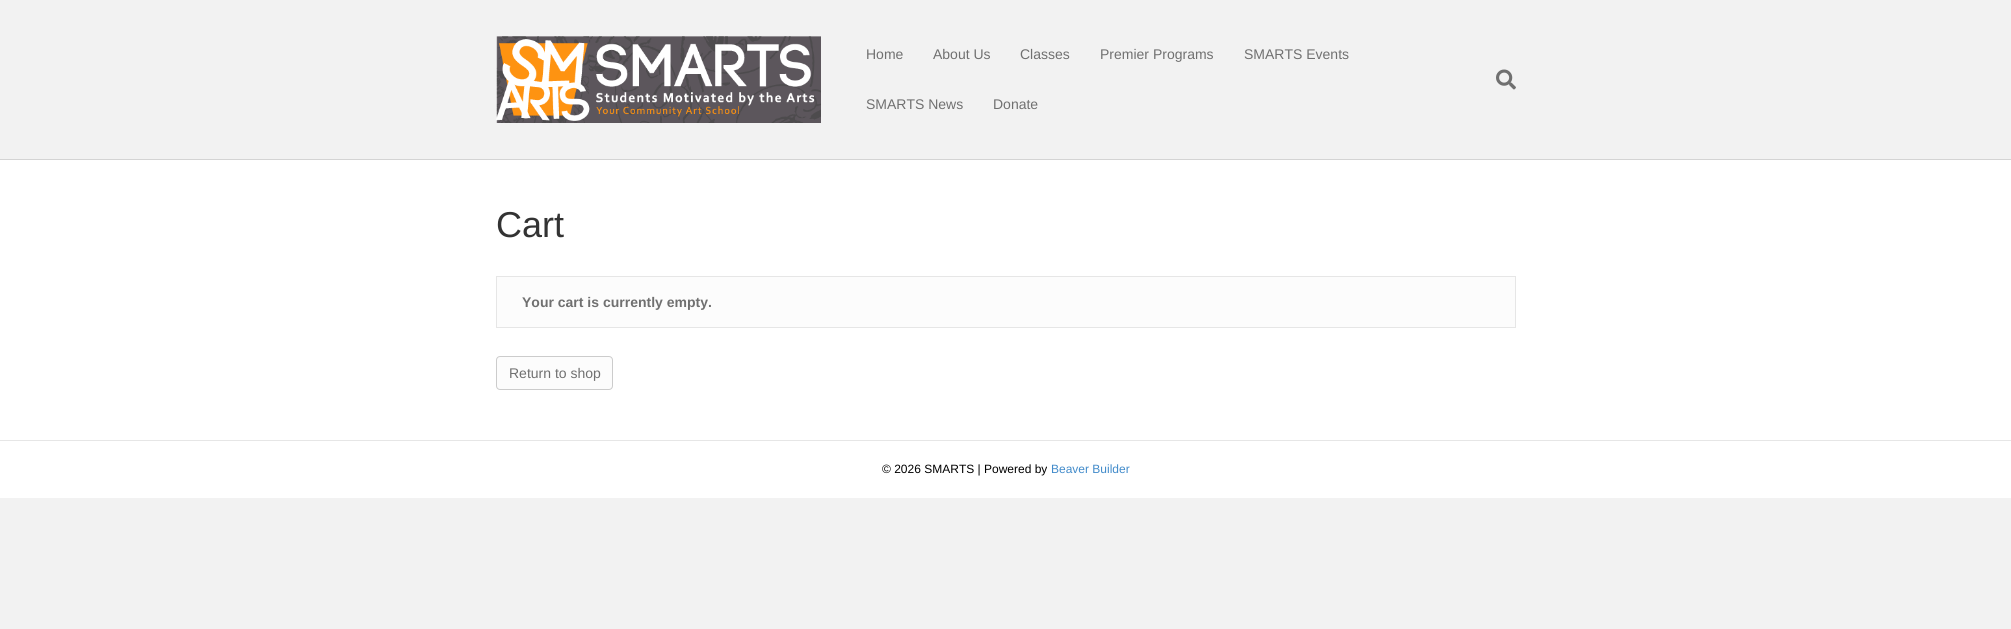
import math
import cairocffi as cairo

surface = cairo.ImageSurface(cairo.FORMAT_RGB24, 2011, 629)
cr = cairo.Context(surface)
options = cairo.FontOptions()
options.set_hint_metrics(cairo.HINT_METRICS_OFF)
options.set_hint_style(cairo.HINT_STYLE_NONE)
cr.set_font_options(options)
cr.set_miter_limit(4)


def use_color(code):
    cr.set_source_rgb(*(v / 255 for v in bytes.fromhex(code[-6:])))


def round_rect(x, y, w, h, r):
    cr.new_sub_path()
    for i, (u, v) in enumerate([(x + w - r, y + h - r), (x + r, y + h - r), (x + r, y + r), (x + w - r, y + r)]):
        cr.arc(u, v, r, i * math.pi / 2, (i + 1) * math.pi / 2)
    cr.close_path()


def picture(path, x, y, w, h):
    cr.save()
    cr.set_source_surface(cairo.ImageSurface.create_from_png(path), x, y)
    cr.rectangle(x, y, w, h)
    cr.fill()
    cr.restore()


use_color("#f2f2f2")
cr.paint()
use_color("#d4d4d4")
cr.rectangle(0, 159, 2011, 1)
cr.fill()
picture("img1.png", 496, 36, 325, 87)
cr.select_font_face("Liberation Sans")
cr.set_font_size(14)
use_color("#707070")
cr.move_to(866, 59)
cr.show_text("Home")
cr.move_to(933, 59)
cr.show_text("About Us")
cr.move_to(1020, 59)
cr.show_text("Classes")
cr.move_to(1100, 59)
cr.show_text("Premier Programs")
cr.move_to(1244, 59)
cr.show_text("SMARTS Events")
cr.move_to(866, 109)
cr.show_text("SMARTS News")
cr.move_to(993, 109)
cr.show_text("Donate")
picture("img2.png", 1496, 69, 20, 21)
use_color("#ffffff")
cr.rectangle(0, 160, 2011, 280)
cr.fill()
cr.set_font_size(36)
use_color("#333333")
cr.move_to(496, 237)
cr.show_text("Cart")
use_color("#fcfcfc")
cr.rectangle(496.5, 276.5, 1019, 51)
cr.fill_preserve()
use_color("#e6e6e6")
cr.set_line_width(1)
cr.stroke()
cr.select_font_face("Liberation Sans", cairo.FONT_SLANT_NORMAL, cairo.FONT_WEIGHT_BOLD)
cr.set_font_size(14)
use_color("#707070")
cr.move_to(522, 307)
cr.show_text("Your cart is currently empty.")
use_color("#fcfcfc")
round_rect(496.5, 356.5, 116, 33, 3.5)
cr.fill_preserve()
use_color("#cccccc")
cr.stroke()
cr.select_font_face("Liberation Sans")
use_color("#707070")
cr.move_to(509, 378)
cr.show_text("Return to shop")
use_color("#ffffff")
cr.rectangle(0, 441, 2011, 57)
cr.fill()
use_color("#e6e6e6")
cr.rectangle(0, 440, 2011, 1)
cr.fill()
cr.set_font_size(12)
use_color("#000000")
cr.move_to(882, 473)
cr.show_text("© 2026 SMARTS | Powered by")
use_color("#428bca")
cr.move_to(1051, 473)
cr.show_text("Beaver Builder")
surface.write_to_png("result.png")
